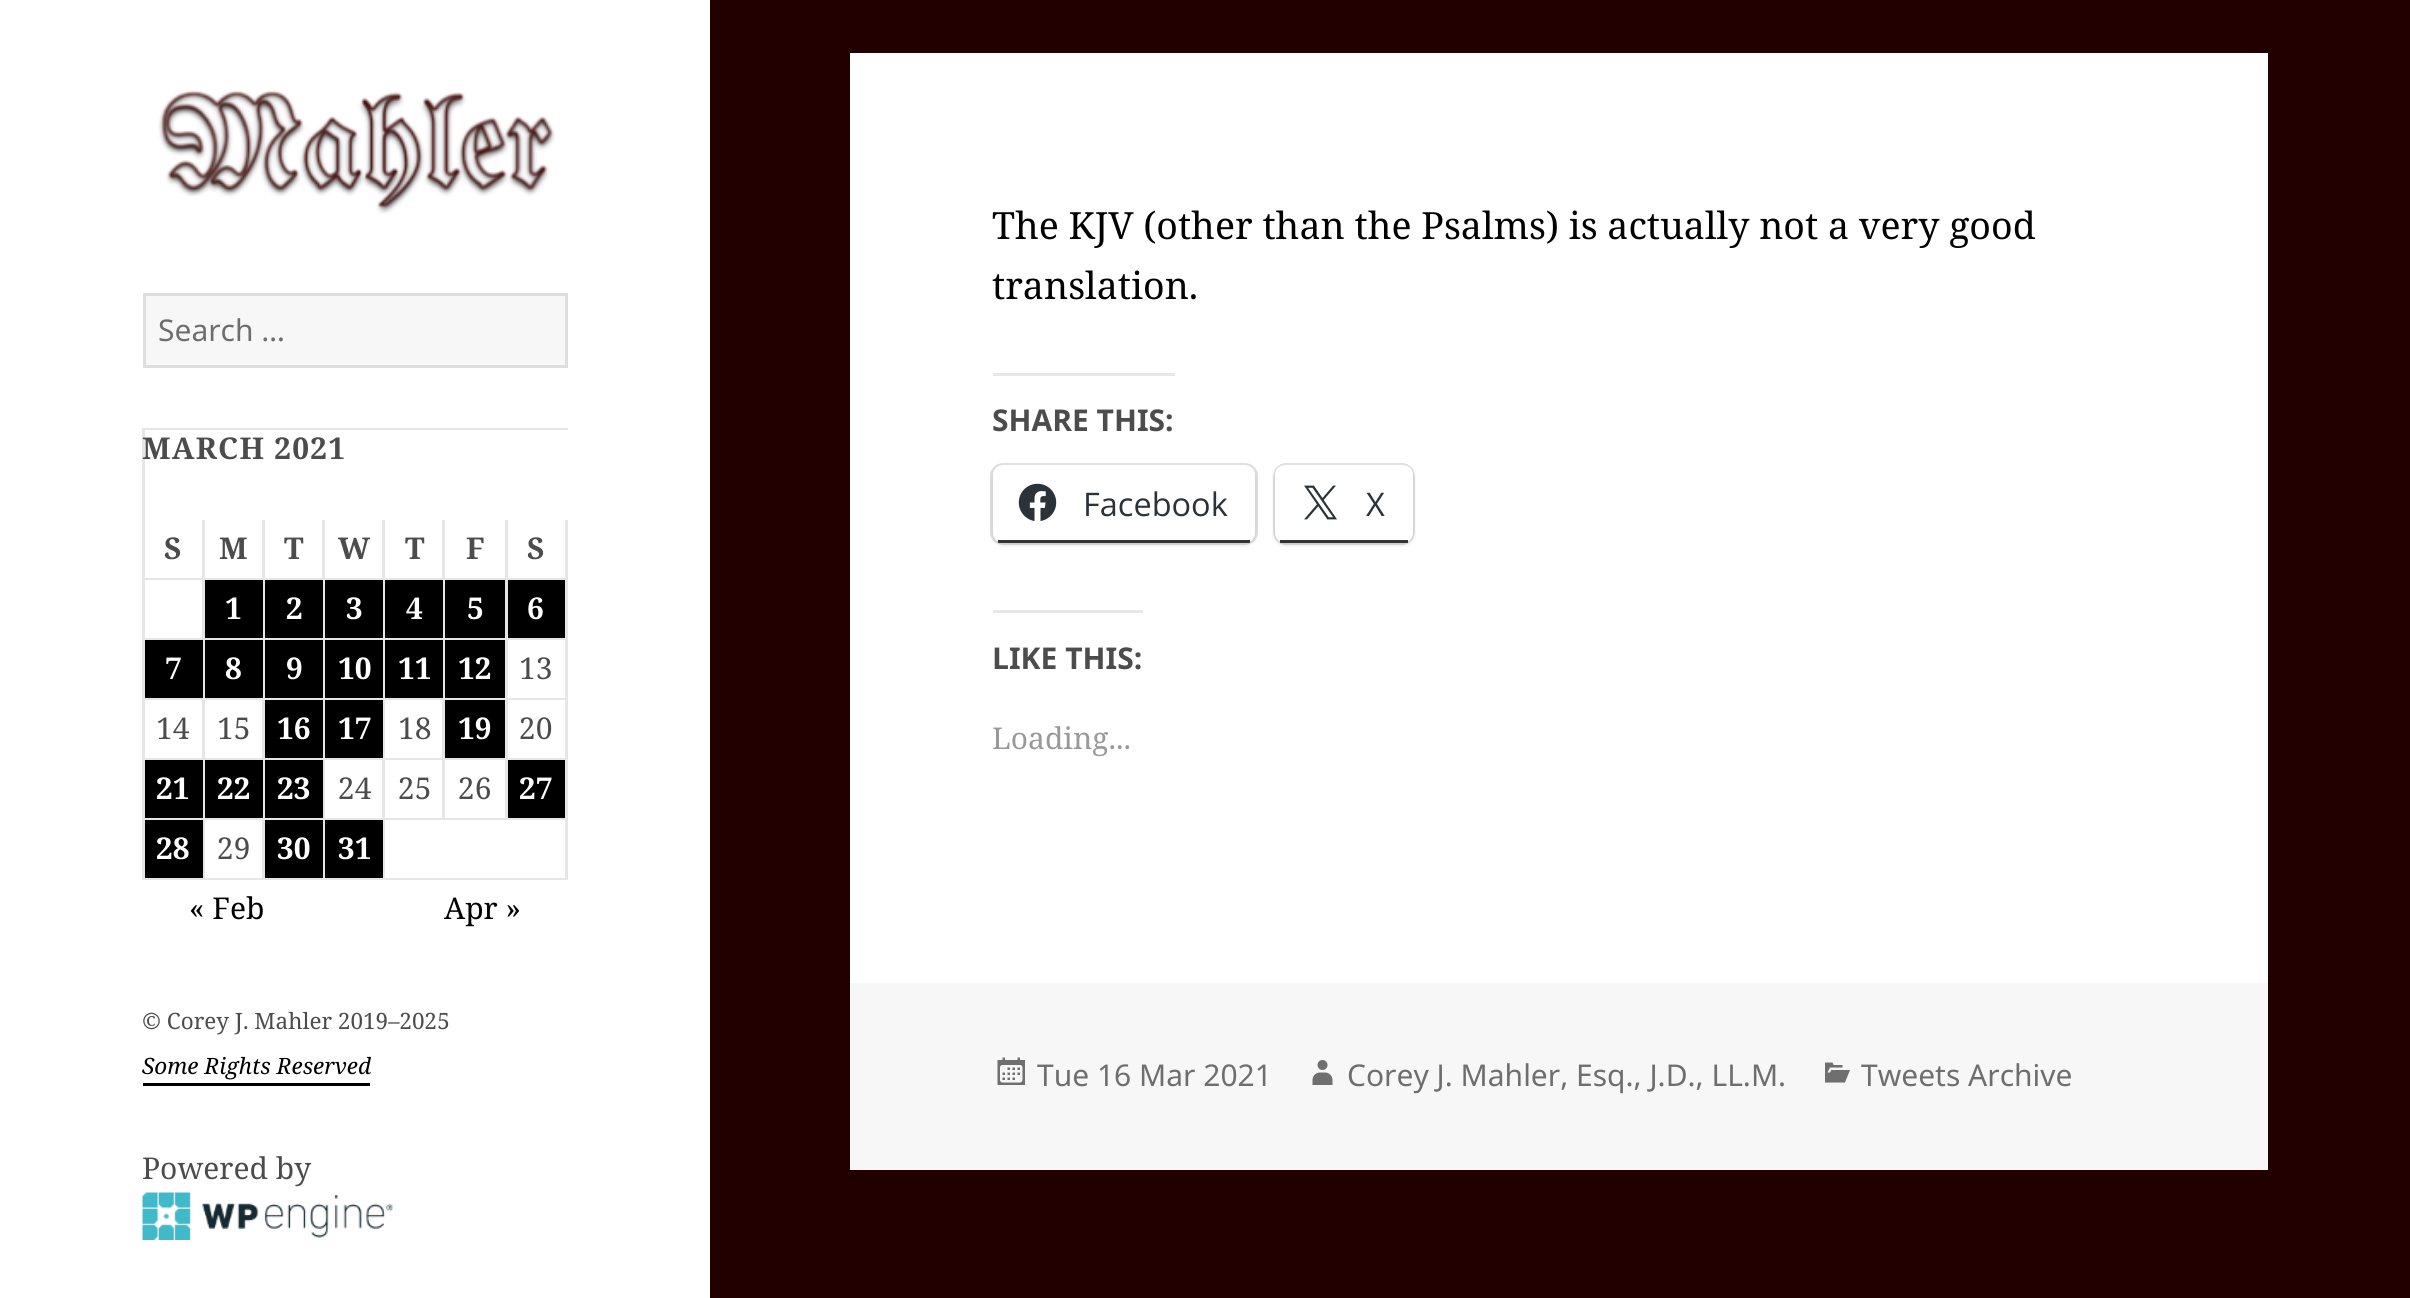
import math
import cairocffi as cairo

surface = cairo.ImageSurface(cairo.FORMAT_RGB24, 2410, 1298)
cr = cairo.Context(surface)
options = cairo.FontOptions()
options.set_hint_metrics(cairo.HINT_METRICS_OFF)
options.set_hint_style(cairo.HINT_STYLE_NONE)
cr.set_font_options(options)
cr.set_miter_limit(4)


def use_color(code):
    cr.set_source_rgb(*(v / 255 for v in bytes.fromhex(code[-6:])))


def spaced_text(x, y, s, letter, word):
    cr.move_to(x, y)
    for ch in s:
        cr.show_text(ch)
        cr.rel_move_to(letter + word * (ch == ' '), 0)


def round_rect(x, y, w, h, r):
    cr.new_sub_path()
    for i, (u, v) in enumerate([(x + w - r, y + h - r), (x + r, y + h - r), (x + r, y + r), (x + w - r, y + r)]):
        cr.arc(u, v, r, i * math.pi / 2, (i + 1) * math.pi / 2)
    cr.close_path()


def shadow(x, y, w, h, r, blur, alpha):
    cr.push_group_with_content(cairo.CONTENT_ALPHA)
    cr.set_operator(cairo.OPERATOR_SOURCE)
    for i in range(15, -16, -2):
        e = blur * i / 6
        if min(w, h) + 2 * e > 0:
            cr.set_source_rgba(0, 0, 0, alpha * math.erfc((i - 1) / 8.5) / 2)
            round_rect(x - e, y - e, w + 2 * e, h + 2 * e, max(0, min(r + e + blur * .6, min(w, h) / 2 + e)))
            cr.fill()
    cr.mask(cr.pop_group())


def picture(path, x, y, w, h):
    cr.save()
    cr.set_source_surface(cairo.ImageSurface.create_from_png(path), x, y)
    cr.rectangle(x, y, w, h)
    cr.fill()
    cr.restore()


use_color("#220000")
cr.paint()
use_color("#ffffff")
cr.rectangle(0, 0, 710, 1298)
cr.fill()
picture("img1.png", 158, 90, 397, 124)
use_color("#f7f7f7")
cr.rectangle(144.5, 294.5, 422, 72)
cr.fill_preserve()
use_color("#dedede")
cr.set_line_width(3)
cr.stroke()
cr.select_font_face("Noto Sans")
cr.set_font_size(30)
use_color("#6e6e6e")
cr.move_to(158, 341)
cr.show_text("Search …")
use_color("#e6e6e6")
cr.new_path()
cr.move_to(142, 428)
cr.line_to(568, 428)
cr.line_to(568, 430)
cr.line_to(145, 430)
cr.close_path()
cr.fill()
cr.set_source_rgba(0, 0, 0, 0.1)
cr.new_path()
cr.move_to(142, 880)
cr.line_to(142, 428)
cr.line_to(145, 430)
cr.line_to(145, 880)
cr.close_path()
cr.fill()
cr.select_font_face("Noto Serif", cairo.FONT_SLANT_NORMAL, cairo.FONT_WEIGHT_BOLD)
use_color("#4c4c4c")
spaced_text(142, 459, "MARCH 2021", 1.25, 0)
use_color("#e6e6e6")
cr.new_path()
cr.move_to(205, 520)
cr.line_to(205, 580)
cr.line_to(202, 578)
cr.line_to(202, 520)
cr.close_path()
cr.fill()
cr.set_source_rgba(0, 0, 0, 0.1)
cr.new_path()
cr.move_to(205, 580)
cr.line_to(145, 580)
cr.line_to(145, 578)
cr.line_to(202, 578)
cr.close_path()
cr.fill()
use_color("#4c4c4c")
cr.move_to(164, 559)
cr.show_text("S")
use_color("#e6e6e6")
cr.new_path()
cr.move_to(265, 520)
cr.line_to(265, 580)
cr.line_to(262, 578)
cr.line_to(262, 520)
cr.close_path()
cr.fill()
cr.set_source_rgba(0, 0, 0, 0.1)
cr.new_path()
cr.move_to(265, 580)
cr.line_to(205, 580)
cr.line_to(205, 578)
cr.line_to(262, 578)
cr.close_path()
cr.fill()
use_color("#4c4c4c")
cr.move_to(219, 559)
cr.show_text("M")
use_color("#e6e6e6")
cr.new_path()
cr.move_to(325, 520)
cr.line_to(325, 580)
cr.line_to(322, 578)
cr.line_to(322, 520)
cr.close_path()
cr.fill()
cr.set_source_rgba(0, 0, 0, 0.1)
cr.new_path()
cr.move_to(325, 580)
cr.line_to(265, 580)
cr.line_to(265, 578)
cr.line_to(322, 578)
cr.close_path()
cr.fill()
use_color("#4c4c4c")
cr.move_to(284, 559)
cr.show_text("T")
use_color("#e6e6e6")
cr.new_path()
cr.move_to(385, 520)
cr.line_to(385, 580)
cr.line_to(382, 578)
cr.line_to(382, 520)
cr.close_path()
cr.fill()
cr.set_source_rgba(0, 0, 0, 0.1)
cr.new_path()
cr.move_to(385, 580)
cr.line_to(325, 580)
cr.line_to(325, 578)
cr.line_to(382, 578)
cr.close_path()
cr.fill()
use_color("#4c4c4c")
cr.move_to(338, 559)
cr.show_text("W")
use_color("#e6e6e6")
cr.new_path()
cr.move_to(445, 520)
cr.line_to(445, 580)
cr.line_to(442, 578)
cr.line_to(442, 520)
cr.close_path()
cr.fill()
cr.set_source_rgba(0, 0, 0, 0.1)
cr.new_path()
cr.move_to(445, 580)
cr.line_to(385, 580)
cr.line_to(385, 578)
cr.line_to(442, 578)
cr.close_path()
cr.fill()
use_color("#4c4c4c")
cr.move_to(405, 559)
cr.show_text("T")
use_color("#e6e6e6")
cr.new_path()
cr.move_to(508, 520)
cr.line_to(508, 580)
cr.line_to(505, 578)
cr.line_to(505, 520)
cr.close_path()
cr.fill()
cr.set_source_rgba(0, 0, 0, 0.1)
cr.new_path()
cr.move_to(508, 580)
cr.line_to(445, 580)
cr.line_to(445, 578)
cr.line_to(505, 578)
cr.close_path()
cr.fill()
use_color("#4c4c4c")
cr.move_to(466, 559)
cr.show_text("F")
use_color("#e6e6e6")
cr.new_path()
cr.move_to(568, 520)
cr.line_to(568, 580)
cr.line_to(565, 578)
cr.line_to(565, 520)
cr.close_path()
cr.fill()
cr.set_source_rgba(0, 0, 0, 0.1)
cr.new_path()
cr.move_to(568, 580)
cr.line_to(508, 580)
cr.line_to(508, 578)
cr.line_to(565, 578)
cr.close_path()
cr.fill()
use_color("#4c4c4c")
cr.move_to(527, 559)
cr.show_text("S")
use_color("#e6e6e6")
cr.new_path()
cr.move_to(205, 580)
cr.line_to(205, 640)
cr.line_to(202, 638)
cr.line_to(202, 580)
cr.close_path()
cr.fill()
cr.set_source_rgba(0, 0, 0, 0.1)
cr.new_path()
cr.move_to(205, 640)
cr.line_to(145, 640)
cr.line_to(145, 638)
cr.line_to(202, 638)
cr.close_path()
cr.fill()
use_color("#e6e6e6")
cr.new_path()
cr.move_to(265, 580)
cr.line_to(265, 640)
cr.line_to(262, 638)
cr.line_to(262, 580)
cr.close_path()
cr.fill()
cr.set_source_rgba(0, 0, 0, 0.1)
cr.new_path()
cr.move_to(265, 640)
cr.line_to(205, 640)
cr.line_to(205, 638)
cr.line_to(262, 638)
cr.close_path()
cr.fill()
use_color("#000000")
cr.rectangle(205, 580, 58, 58)
cr.fill()
use_color("#ffffff")
cr.move_to(225, 619)
cr.show_text("1")
use_color("#e6e6e6")
cr.new_path()
cr.move_to(325, 580)
cr.line_to(325, 640)
cr.line_to(322, 638)
cr.line_to(322, 580)
cr.close_path()
cr.fill()
cr.set_source_rgba(0, 0, 0, 0.1)
cr.new_path()
cr.move_to(325, 640)
cr.line_to(265, 640)
cr.line_to(265, 638)
cr.line_to(322, 638)
cr.close_path()
cr.fill()
use_color("#000000")
cr.rectangle(265, 580, 58, 58)
cr.fill()
use_color("#ffffff")
cr.move_to(286, 619)
cr.show_text("2")
use_color("#e6e6e6")
cr.new_path()
cr.move_to(385, 580)
cr.line_to(385, 640)
cr.line_to(382, 638)
cr.line_to(382, 580)
cr.close_path()
cr.fill()
cr.set_source_rgba(0, 0, 0, 0.1)
cr.new_path()
cr.move_to(385, 640)
cr.line_to(325, 640)
cr.line_to(325, 638)
cr.line_to(382, 638)
cr.close_path()
cr.fill()
use_color("#000000")
cr.rectangle(325, 580, 58, 58)
cr.fill()
use_color("#ffffff")
cr.move_to(346, 619)
cr.show_text("3")
use_color("#e6e6e6")
cr.new_path()
cr.move_to(445, 580)
cr.line_to(445, 640)
cr.line_to(442, 638)
cr.line_to(442, 580)
cr.close_path()
cr.fill()
cr.set_source_rgba(0, 0, 0, 0.1)
cr.new_path()
cr.move_to(445, 640)
cr.line_to(385, 640)
cr.line_to(385, 638)
cr.line_to(442, 638)
cr.close_path()
cr.fill()
use_color("#000000")
cr.rectangle(385, 580, 58, 58)
cr.fill()
use_color("#ffffff")
cr.move_to(406, 619)
cr.show_text("4")
use_color("#e6e6e6")
cr.new_path()
cr.move_to(508, 580)
cr.line_to(508, 640)
cr.line_to(505, 638)
cr.line_to(505, 580)
cr.close_path()
cr.fill()
cr.set_source_rgba(0, 0, 0, 0.1)
cr.new_path()
cr.move_to(508, 640)
cr.line_to(445, 640)
cr.line_to(445, 638)
cr.line_to(505, 638)
cr.close_path()
cr.fill()
use_color("#000000")
cr.rectangle(445, 580, 60, 58)
cr.fill()
use_color("#ffffff")
cr.move_to(467, 619)
cr.show_text("5")
use_color("#e6e6e6")
cr.new_path()
cr.move_to(568, 580)
cr.line_to(568, 640)
cr.line_to(565, 638)
cr.line_to(565, 580)
cr.close_path()
cr.fill()
cr.set_source_rgba(0, 0, 0, 0.1)
cr.new_path()
cr.move_to(568, 640)
cr.line_to(508, 640)
cr.line_to(508, 638)
cr.line_to(565, 638)
cr.close_path()
cr.fill()
use_color("#000000")
cr.rectangle(508, 580, 57, 58)
cr.fill()
use_color("#ffffff")
cr.move_to(527, 619)
cr.show_text("6")
use_color("#e6e6e6")
cr.new_path()
cr.move_to(205, 640)
cr.line_to(205, 700)
cr.line_to(202, 698)
cr.line_to(202, 640)
cr.close_path()
cr.fill()
cr.set_source_rgba(0, 0, 0, 0.1)
cr.new_path()
cr.move_to(205, 700)
cr.line_to(145, 700)
cr.line_to(145, 698)
cr.line_to(202, 698)
cr.close_path()
cr.fill()
use_color("#000000")
cr.rectangle(145, 640, 58, 58)
cr.fill()
use_color("#ffffff")
cr.move_to(165, 679)
cr.show_text("7")
use_color("#e6e6e6")
cr.new_path()
cr.move_to(265, 640)
cr.line_to(265, 700)
cr.line_to(262, 698)
cr.line_to(262, 640)
cr.close_path()
cr.fill()
cr.set_source_rgba(0, 0, 0, 0.1)
cr.new_path()
cr.move_to(265, 700)
cr.line_to(205, 700)
cr.line_to(205, 698)
cr.line_to(262, 698)
cr.close_path()
cr.fill()
use_color("#000000")
cr.rectangle(205, 640, 58, 58)
cr.fill()
use_color("#ffffff")
cr.move_to(225, 679)
cr.show_text("8")
use_color("#e6e6e6")
cr.new_path()
cr.move_to(325, 640)
cr.line_to(325, 700)
cr.line_to(322, 698)
cr.line_to(322, 640)
cr.close_path()
cr.fill()
cr.set_source_rgba(0, 0, 0, 0.1)
cr.new_path()
cr.move_to(325, 700)
cr.line_to(265, 700)
cr.line_to(265, 698)
cr.line_to(322, 698)
cr.close_path()
cr.fill()
use_color("#000000")
cr.rectangle(265, 640, 58, 58)
cr.fill()
use_color("#ffffff")
cr.move_to(286, 679)
cr.show_text("9")
use_color("#e6e6e6")
cr.new_path()
cr.move_to(385, 640)
cr.line_to(385, 700)
cr.line_to(382, 698)
cr.line_to(382, 640)
cr.close_path()
cr.fill()
cr.set_source_rgba(0, 0, 0, 0.1)
cr.new_path()
cr.move_to(385, 700)
cr.line_to(325, 700)
cr.line_to(325, 698)
cr.line_to(382, 698)
cr.close_path()
cr.fill()
use_color("#000000")
cr.rectangle(325, 640, 58, 58)
cr.fill()
use_color("#ffffff")
cr.move_to(338, 679)
cr.show_text("10")
use_color("#e6e6e6")
cr.new_path()
cr.move_to(445, 640)
cr.line_to(445, 700)
cr.line_to(442, 698)
cr.line_to(442, 640)
cr.close_path()
cr.fill()
cr.set_source_rgba(0, 0, 0, 0.1)
cr.new_path()
cr.move_to(445, 700)
cr.line_to(385, 700)
cr.line_to(385, 698)
cr.line_to(442, 698)
cr.close_path()
cr.fill()
use_color("#000000")
cr.rectangle(385, 640, 58, 58)
cr.fill()
use_color("#ffffff")
cr.move_to(398, 679)
cr.show_text("11")
use_color("#e6e6e6")
cr.new_path()
cr.move_to(508, 640)
cr.line_to(508, 700)
cr.line_to(505, 698)
cr.line_to(505, 640)
cr.close_path()
cr.fill()
cr.set_source_rgba(0, 0, 0, 0.1)
cr.new_path()
cr.move_to(508, 700)
cr.line_to(445, 700)
cr.line_to(445, 698)
cr.line_to(505, 698)
cr.close_path()
cr.fill()
use_color("#000000")
cr.rectangle(445, 640, 60, 58)
cr.fill()
use_color("#ffffff")
cr.move_to(458, 679)
cr.show_text("12")
use_color("#e6e6e6")
cr.new_path()
cr.move_to(568, 640)
cr.line_to(568, 700)
cr.line_to(565, 698)
cr.line_to(565, 640)
cr.close_path()
cr.fill()
cr.set_source_rgba(0, 0, 0, 0.1)
cr.new_path()
cr.move_to(568, 700)
cr.line_to(508, 700)
cr.line_to(508, 698)
cr.line_to(565, 698)
cr.close_path()
cr.fill()
cr.select_font_face("Noto Serif")
use_color("#4c4c4c")
cr.move_to(519, 679)
cr.show_text("13")
use_color("#e6e6e6")
cr.new_path()
cr.move_to(205, 700)
cr.line_to(205, 760)
cr.line_to(202, 758)
cr.line_to(202, 700)
cr.close_path()
cr.fill()
cr.set_source_rgba(0, 0, 0, 0.1)
cr.new_path()
cr.move_to(205, 760)
cr.line_to(145, 760)
cr.line_to(145, 758)
cr.line_to(202, 758)
cr.close_path()
cr.fill()
use_color("#4c4c4c")
cr.move_to(156, 739)
cr.show_text("14")
use_color("#e6e6e6")
cr.new_path()
cr.move_to(265, 700)
cr.line_to(265, 760)
cr.line_to(262, 758)
cr.line_to(262, 700)
cr.close_path()
cr.fill()
cr.set_source_rgba(0, 0, 0, 0.1)
cr.new_path()
cr.move_to(265, 760)
cr.line_to(205, 760)
cr.line_to(205, 758)
cr.line_to(262, 758)
cr.close_path()
cr.fill()
use_color("#4c4c4c")
cr.move_to(217, 739)
cr.show_text("15")
use_color("#e6e6e6")
cr.new_path()
cr.move_to(325, 700)
cr.line_to(325, 760)
cr.line_to(322, 758)
cr.line_to(322, 700)
cr.close_path()
cr.fill()
cr.set_source_rgba(0, 0, 0, 0.1)
cr.new_path()
cr.move_to(325, 760)
cr.line_to(265, 760)
cr.line_to(265, 758)
cr.line_to(322, 758)
cr.close_path()
cr.fill()
use_color("#000000")
cr.rectangle(265, 700, 58, 58)
cr.fill()
cr.select_font_face("Noto Serif", cairo.FONT_SLANT_NORMAL, cairo.FONT_WEIGHT_BOLD)
use_color("#ffffff")
cr.move_to(277, 739)
cr.show_text("16")
use_color("#e6e6e6")
cr.new_path()
cr.move_to(385, 700)
cr.line_to(385, 760)
cr.line_to(382, 758)
cr.line_to(382, 700)
cr.close_path()
cr.fill()
cr.set_source_rgba(0, 0, 0, 0.1)
cr.new_path()
cr.move_to(385, 760)
cr.line_to(325, 760)
cr.line_to(325, 758)
cr.line_to(382, 758)
cr.close_path()
cr.fill()
use_color("#000000")
cr.rectangle(325, 700, 58, 58)
cr.fill()
use_color("#ffffff")
cr.move_to(338, 739)
cr.show_text("17")
use_color("#e6e6e6")
cr.new_path()
cr.move_to(445, 700)
cr.line_to(445, 760)
cr.line_to(442, 758)
cr.line_to(442, 700)
cr.close_path()
cr.fill()
cr.set_source_rgba(0, 0, 0, 0.1)
cr.new_path()
cr.move_to(445, 760)
cr.line_to(385, 760)
cr.line_to(385, 758)
cr.line_to(442, 758)
cr.close_path()
cr.fill()
cr.select_font_face("Noto Serif")
use_color("#4c4c4c")
cr.move_to(398, 739)
cr.show_text("18")
use_color("#e6e6e6")
cr.new_path()
cr.move_to(508, 700)
cr.line_to(508, 760)
cr.line_to(505, 758)
cr.line_to(505, 700)
cr.close_path()
cr.fill()
cr.set_source_rgba(0, 0, 0, 0.1)
cr.new_path()
cr.move_to(508, 760)
cr.line_to(445, 760)
cr.line_to(445, 758)
cr.line_to(505, 758)
cr.close_path()
cr.fill()
use_color("#000000")
cr.rectangle(445, 700, 60, 58)
cr.fill()
cr.select_font_face("Noto Serif", cairo.FONT_SLANT_NORMAL, cairo.FONT_WEIGHT_BOLD)
use_color("#ffffff")
cr.move_to(458, 739)
cr.show_text("19")
use_color("#e6e6e6")
cr.new_path()
cr.move_to(568, 700)
cr.line_to(568, 760)
cr.line_to(565, 758)
cr.line_to(565, 700)
cr.close_path()
cr.fill()
cr.set_source_rgba(0, 0, 0, 0.1)
cr.new_path()
cr.move_to(568, 760)
cr.line_to(508, 760)
cr.line_to(508, 758)
cr.line_to(565, 758)
cr.close_path()
cr.fill()
cr.select_font_face("Noto Serif")
use_color("#4c4c4c")
cr.move_to(519, 739)
cr.show_text("20")
use_color("#e6e6e6")
cr.new_path()
cr.move_to(205, 760)
cr.line_to(205, 820)
cr.line_to(202, 818)
cr.line_to(202, 760)
cr.close_path()
cr.fill()
cr.set_source_rgba(0, 0, 0, 0.1)
cr.new_path()
cr.move_to(205, 820)
cr.line_to(145, 820)
cr.line_to(145, 818)
cr.line_to(202, 818)
cr.close_path()
cr.fill()
use_color("#000000")
cr.rectangle(145, 760, 58, 58)
cr.fill()
cr.select_font_face("Noto Serif", cairo.FONT_SLANT_NORMAL, cairo.FONT_WEIGHT_BOLD)
use_color("#ffffff")
cr.move_to(156, 799)
cr.show_text("21")
use_color("#e6e6e6")
cr.new_path()
cr.move_to(265, 760)
cr.line_to(265, 820)
cr.line_to(262, 818)
cr.line_to(262, 760)
cr.close_path()
cr.fill()
cr.set_source_rgba(0, 0, 0, 0.1)
cr.new_path()
cr.move_to(265, 820)
cr.line_to(205, 820)
cr.line_to(205, 818)
cr.line_to(262, 818)
cr.close_path()
cr.fill()
use_color("#000000")
cr.rectangle(205, 760, 58, 58)
cr.fill()
use_color("#ffffff")
cr.move_to(217, 799)
cr.show_text("22")
use_color("#e6e6e6")
cr.new_path()
cr.move_to(325, 760)
cr.line_to(325, 820)
cr.line_to(322, 818)
cr.line_to(322, 760)
cr.close_path()
cr.fill()
cr.set_source_rgba(0, 0, 0, 0.1)
cr.new_path()
cr.move_to(325, 820)
cr.line_to(265, 820)
cr.line_to(265, 818)
cr.line_to(322, 818)
cr.close_path()
cr.fill()
use_color("#000000")
cr.rectangle(265, 760, 58, 58)
cr.fill()
use_color("#ffffff")
cr.move_to(277, 799)
cr.show_text("23")
use_color("#e6e6e6")
cr.new_path()
cr.move_to(385, 760)
cr.line_to(385, 820)
cr.line_to(382, 818)
cr.line_to(382, 760)
cr.close_path()
cr.fill()
cr.set_source_rgba(0, 0, 0, 0.1)
cr.new_path()
cr.move_to(385, 820)
cr.line_to(325, 820)
cr.line_to(325, 818)
cr.line_to(382, 818)
cr.close_path()
cr.fill()
cr.select_font_face("Noto Serif")
use_color("#4c4c4c")
cr.move_to(338, 799)
cr.show_text("24")
use_color("#e6e6e6")
cr.new_path()
cr.move_to(445, 760)
cr.line_to(445, 820)
cr.line_to(442, 818)
cr.line_to(442, 760)
cr.close_path()
cr.fill()
cr.set_source_rgba(0, 0, 0, 0.1)
cr.new_path()
cr.move_to(445, 820)
cr.line_to(385, 820)
cr.line_to(385, 818)
cr.line_to(442, 818)
cr.close_path()
cr.fill()
use_color("#4c4c4c")
cr.move_to(398, 799)
cr.show_text("25")
use_color("#e6e6e6")
cr.new_path()
cr.move_to(508, 760)
cr.line_to(508, 820)
cr.line_to(505, 818)
cr.line_to(505, 760)
cr.close_path()
cr.fill()
cr.set_source_rgba(0, 0, 0, 0.1)
cr.new_path()
cr.move_to(508, 820)
cr.line_to(445, 820)
cr.line_to(445, 818)
cr.line_to(505, 818)
cr.close_path()
cr.fill()
use_color("#4c4c4c")
cr.move_to(458, 799)
cr.show_text("26")
use_color("#e6e6e6")
cr.new_path()
cr.move_to(568, 760)
cr.line_to(568, 820)
cr.line_to(565, 818)
cr.line_to(565, 760)
cr.close_path()
cr.fill()
cr.set_source_rgba(0, 0, 0, 0.1)
cr.new_path()
cr.move_to(568, 820)
cr.line_to(508, 820)
cr.line_to(508, 818)
cr.line_to(565, 818)
cr.close_path()
cr.fill()
use_color("#000000")
cr.rectangle(508, 760, 57, 58)
cr.fill()
cr.select_font_face("Noto Serif", cairo.FONT_SLANT_NORMAL, cairo.FONT_WEIGHT_BOLD)
use_color("#ffffff")
cr.move_to(519, 799)
cr.show_text("27")
use_color("#e6e6e6")
cr.new_path()
cr.move_to(205, 820)
cr.line_to(205, 880)
cr.line_to(202, 878)
cr.line_to(202, 820)
cr.close_path()
cr.fill()
cr.set_source_rgba(0, 0, 0, 0.1)
cr.new_path()
cr.move_to(205, 880)
cr.line_to(145, 880)
cr.line_to(145, 878)
cr.line_to(202, 878)
cr.close_path()
cr.fill()
use_color("#000000")
cr.rectangle(145, 820, 58, 58)
cr.fill()
use_color("#ffffff")
cr.move_to(156, 859)
cr.show_text("28")
use_color("#e6e6e6")
cr.new_path()
cr.move_to(265, 820)
cr.line_to(265, 880)
cr.line_to(262, 878)
cr.line_to(262, 820)
cr.close_path()
cr.fill()
cr.set_source_rgba(0, 0, 0, 0.1)
cr.new_path()
cr.move_to(265, 880)
cr.line_to(205, 880)
cr.line_to(205, 878)
cr.line_to(262, 878)
cr.close_path()
cr.fill()
cr.select_font_face("Noto Serif")
use_color("#4c4c4c")
cr.move_to(217, 859)
cr.show_text("29")
use_color("#e6e6e6")
cr.new_path()
cr.move_to(325, 820)
cr.line_to(325, 880)
cr.line_to(322, 878)
cr.line_to(322, 820)
cr.close_path()
cr.fill()
cr.set_source_rgba(0, 0, 0, 0.1)
cr.new_path()
cr.move_to(325, 880)
cr.line_to(265, 880)
cr.line_to(265, 878)
cr.line_to(322, 878)
cr.close_path()
cr.fill()
use_color("#000000")
cr.rectangle(265, 820, 58, 58)
cr.fill()
cr.select_font_face("Noto Serif", cairo.FONT_SLANT_NORMAL, cairo.FONT_WEIGHT_BOLD)
use_color("#ffffff")
cr.move_to(277, 859)
cr.show_text("30")
use_color("#e6e6e6")
cr.new_path()
cr.move_to(385, 820)
cr.line_to(385, 880)
cr.line_to(382, 878)
cr.line_to(382, 820)
cr.close_path()
cr.fill()
cr.set_source_rgba(0, 0, 0, 0.1)
cr.new_path()
cr.move_to(385, 880)
cr.line_to(325, 880)
cr.line_to(325, 878)
cr.line_to(382, 878)
cr.close_path()
cr.fill()
use_color("#000000")
cr.rectangle(325, 820, 58, 58)
cr.fill()
use_color("#ffffff")
cr.move_to(338, 859)
cr.show_text("31")
use_color("#e6e6e6")
cr.new_path()
cr.move_to(568, 820)
cr.line_to(568, 880)
cr.line_to(565, 878)
cr.line_to(565, 820)
cr.close_path()
cr.fill()
cr.set_source_rgba(0, 0, 0, 0.1)
cr.new_path()
cr.move_to(568, 880)
cr.line_to(385, 880)
cr.line_to(385, 878)
cr.line_to(565, 878)
cr.close_path()
cr.fill()
cr.select_font_face("Noto Serif")
use_color("#000000")
cr.move_to(189, 919)
cr.show_text("« Feb")
cr.move_to(444, 919)
cr.show_text("Apr »")
cr.set_font_size(22.5)
use_color("#4c4c4c")
cr.move_to(142, 1029)
cr.show_text("© Corey J. Mahler 2019–2025")
cr.select_font_face("Noto Serif", cairo.FONT_SLANT_ITALIC)
use_color("#000000")
cr.move_to(142, 1074)
cr.show_text("Some Rights Reserved")
cr.rectangle(143, 1083, 227, 3)
cr.fill()
cr.select_font_face("Noto Serif")
cr.set_font_size(30)
use_color("#4c4c4c")
cr.move_to(142, 1179)
cr.show_text("Powered by")
picture("img2.png", 142, 1192, 251, 48)
use_color("#ffffff")
cr.rectangle(850, 53, 1418, 930)
cr.fill()
cr.set_font_size(37.5)
use_color("#000000")
cr.move_to(992, 239)
cr.show_text("The KJV (other than the Psalms) is actually not a very good")
cr.move_to(992, 299)
cr.show_text("translation.")
use_color("#e7e7e8")
cr.rectangle(993, 373, 182, 3)
cr.fill()
cr.select_font_face("Noto Sans", cairo.FONT_SLANT_NORMAL, cairo.FONT_WEIGHT_BOLD)
cr.set_font_size(30)
use_color("#4c4c4c")
cr.move_to(992, 431)
cr.show_text("SHARE THIS:")
round_rect(991.5, 464.5, 265, 79, 11.5)
use_color("#e0e0e0")
cr.stroke()
use_color("#000000")
shadow(993, 468, 262, 77, 10, 2.5, 0.12)
use_color("#ffffff")
round_rect(993, 465, 262, 78, 10)
cr.fill()
use_color("#333333")
cr.rectangle(998, 540, 252, 3)
cr.fill()
picture("img3.png", 1018, 483, 39, 38)
cr.select_font_face("Open Sans")
cr.set_font_size(32.5)
use_color("#2c3338")
cr.move_to(1083, 516)
cr.show_text("Facebook")
round_rect(1274.5, 464.5, 139, 79, 11.5)
use_color("#e0e0e0")
cr.stroke()
use_color("#000000")
shadow(1275, 468, 138, 77, 10, 2.5, 0.12)
use_color("#ffffff")
round_rect(1275, 465, 138, 78, 10)
cr.fill()
use_color("#333333")
cr.rectangle(1280, 540, 128, 3)
cr.fill()
picture("img4.png", 1304, 485, 33, 35)
use_color("#2c3338")
cr.move_to(1366, 516)
cr.show_text("X")
use_color("#e7e7e8")
cr.rectangle(993, 610, 150, 3)
cr.fill()
cr.select_font_face("Noto Sans", cairo.FONT_SLANT_NORMAL, cairo.FONT_WEIGHT_BOLD)
cr.set_font_size(30)
use_color("#4c4c4c")
cr.move_to(992, 669)
cr.show_text("LIKE THIS:")
cr.select_font_face("Noto Serif")
use_color("#999999")
cr.move_to(992, 749)
cr.show_text("Loading...")
use_color("#f7f7f7")
cr.rectangle(850, 983, 1418, 187)
cr.fill()
picture("img5.png", 997, 1057, 28, 28)
cr.select_font_face("Noto Sans")
use_color("#6e6e6e")
cr.move_to(1037, 1086)
cr.show_text("Tue 16 Mar 2021")
picture("img6.png", 1312, 1060, 21, 25)
cr.move_to(1347, 1086)
cr.show_text("Corey J. Mahler, Esq., J.D., LL.M.")
picture("img7.png", 1825, 1062, 25, 21)
cr.move_to(1861, 1086)
cr.show_text("Tweets Archive")
surface.write_to_png("result.png")
